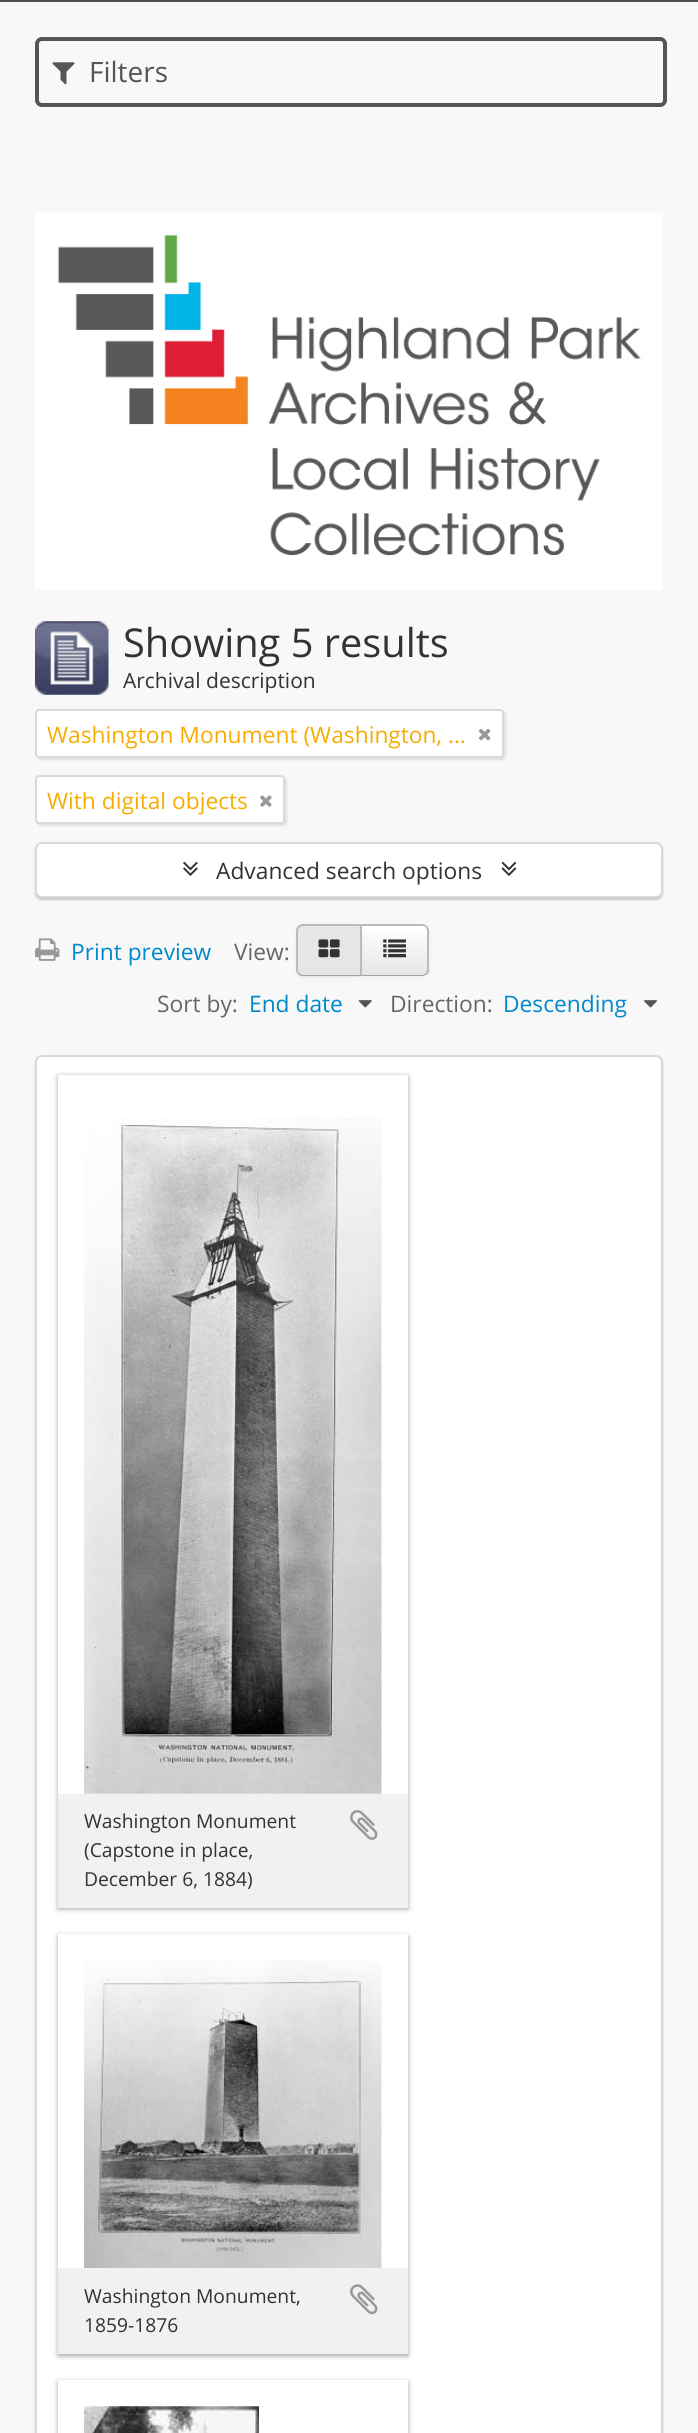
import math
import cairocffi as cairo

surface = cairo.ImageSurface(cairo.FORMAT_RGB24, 698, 2433)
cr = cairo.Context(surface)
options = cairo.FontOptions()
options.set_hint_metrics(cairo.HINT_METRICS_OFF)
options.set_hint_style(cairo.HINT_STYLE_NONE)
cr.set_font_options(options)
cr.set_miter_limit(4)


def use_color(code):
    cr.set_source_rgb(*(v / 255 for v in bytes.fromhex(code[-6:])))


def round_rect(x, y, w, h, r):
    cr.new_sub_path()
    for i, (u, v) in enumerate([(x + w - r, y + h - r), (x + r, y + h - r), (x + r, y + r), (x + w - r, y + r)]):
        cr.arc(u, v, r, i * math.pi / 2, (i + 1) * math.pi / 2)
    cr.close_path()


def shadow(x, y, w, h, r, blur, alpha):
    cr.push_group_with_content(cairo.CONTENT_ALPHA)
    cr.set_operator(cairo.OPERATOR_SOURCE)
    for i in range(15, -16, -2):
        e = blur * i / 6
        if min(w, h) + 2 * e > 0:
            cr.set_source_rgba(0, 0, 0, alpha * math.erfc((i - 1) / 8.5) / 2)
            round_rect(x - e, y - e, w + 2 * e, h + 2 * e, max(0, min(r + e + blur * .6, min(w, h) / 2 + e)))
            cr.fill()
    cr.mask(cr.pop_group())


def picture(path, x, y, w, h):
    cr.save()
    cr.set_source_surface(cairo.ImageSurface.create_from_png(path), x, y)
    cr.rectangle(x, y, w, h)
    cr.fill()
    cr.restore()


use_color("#f8f8f8")
cr.paint()
use_color("#4f4e4d")
cr.rectangle(0, 0, 698, 2)
cr.fill()
round_rect(37, 39, 628, 66, 5)
use_color("#555555")
cr.set_line_width(4)
cr.stroke()
picture("img1.png", 52, 62, 23, 23)
cr.select_font_face("Open Sans")
cr.set_font_size(28)
cr.move_to(89, 82)
cr.show_text("Filters")
picture("img2.png", 35, 212, 628, 378)
picture("img3.png", 35, 621, 74, 74)
cr.set_font_size(39.75)
use_color("#333333")
cr.move_to(123, 657)
cr.show_text("Showing 5 results")
cr.set_font_size(21)
cr.move_to(123, 688)
cr.show_text("Archival description")
use_color("#000000")
shadow(37, 711, 469, 49, 4, 1, 0.1)
use_color("#ffffff")
round_rect(36, 710, 467, 47, 3)
cr.fill_preserve()
use_color("#d9d9d9")
cr.set_line_width(2)
cr.stroke()
cr.set_font_size(22.75)
use_color("#f6ac00")
cr.move_to(47, 743)
cr.show_text("Washington Monument (Washington, …")
picture("img4.png", 478, 728, 13, 13)
use_color("#000000")
shadow(37, 777, 250, 49, 4, 1, 0.1)
use_color("#ffffff")
round_rect(36, 776, 248, 47, 3)
cr.fill_preserve()
use_color("#d9d9d9")
cr.stroke()
use_color("#f6ac00")
cr.move_to(47, 809)
cr.show_text("With digital objects")
picture("img5.png", 260, 795, 12, 12)
use_color("#000000")
shadow(35, 844, 628, 56, 7, 1, 0.2)
use_color("#ffffff")
round_rect(36, 843, 626, 54, 6)
cr.fill_preserve()
use_color("#d9d9d9")
cr.stroke()
picture("img6.png", 183, 861, 15, 15)
use_color("#333333")
cr.move_to(216, 879)
cr.show_text("Advanced search options")
picture("img7.png", 501, 861, 16, 15)
picture("img8.png", 35, 938, 25, 23)
use_color("#0088cc")
cr.move_to(71, 960)
cr.show_text("Print preview")
use_color("#666666")
cr.move_to(234, 960)
cr.show_text("View:")
use_color("#000000")
shadow(361, 926, 68, 52, 7, 2, 0.05)
use_color("#f5f5f5")
cr.new_path()
cr.move_to(361, 924)
cr.line_to(422, 924)
cr.curve_to(426, 924, 429, 927, 429, 931)
cr.line_to(429, 970)
cr.curve_to(429, 974, 426, 977, 422, 977)
cr.line_to(361, 977)
cr.close_path()
cr.fill()
cr.save()
cr.new_path()
cr.move_to(361, 924)
cr.line_to(422, 924)
cr.curve_to(426, 924, 429, 927, 429, 931)
cr.line_to(429, 970)
cr.curve_to(429, 974, 426, 977, 422, 977)
cr.line_to(361, 977)
cr.close_path()
cr.clip()
gradient = cairo.LinearGradient(395, 926, 395, 975)
gradient.add_color_stop_rgba(0, 1, 1, 1, 1)
gradient.add_color_stop_rgba(1, 0.902, 0.902, 0.902, 1)
cr.set_source(gradient)
cr.rectangle(362, 926, 67, 49)
cr.fill()
cr.restore()
use_color("#bbbbbb")
cr.new_path()
cr.move_to(360, 924)
cr.line_to(362, 926)
cr.line_to(422, 926)
cr.curve_to(423, 926, 425, 926, 425, 927)
cr.line_to(427, 926)
cr.curve_to(426, 925, 424, 924, 422, 924)
cr.close_path()
cr.fill()
cr.new_path()
cr.move_to(429, 972)
cr.line_to(427, 974)
cr.line_to(426, 973)
cr.curve_to(426, 972, 427, 971, 427, 970)
cr.line_to(427, 931)
cr.curve_to(427, 929, 426, 928, 425, 927)
cr.line_to(427, 926)
cr.line_to(429, 929)
cr.close_path()
cr.fill()
use_color("#a2a2a2")
cr.new_path()
cr.move_to(427, 974)
cr.curve_to(425, 975, 424, 976, 422, 976)
cr.line_to(361, 976)
cr.line_to(362, 975)
cr.line_to(423, 975)
cr.line_to(426, 973)
cr.close_path()
cr.fill()
use_color("#000000")
shadow(296, 926, 66, 52, 7, 2, 0.05)
use_color("#e6e6e6")
cr.new_path()
cr.move_to(303, 924)
cr.line_to(362, 924)
cr.line_to(362, 977)
cr.line_to(303, 977)
cr.curve_to(299, 977, 296, 974, 296, 970)
cr.line_to(296, 931)
cr.curve_to(296, 927, 299, 924, 303, 924)
cr.close_path()
cr.fill()
use_color("#bbbbbb")
cr.new_path()
cr.move_to(303, 924)
cr.curve_to(301, 924, 299, 925, 298, 926)
cr.line_to(299, 928)
cr.curve_to(300, 927, 301, 926, 303, 926)
cr.line_to(360, 926)
cr.line_to(362, 924)
cr.close_path()
cr.fill()
cr.new_path()
cr.move_to(362, 924)
cr.line_to(362, 976)
cr.line_to(360, 974)
cr.line_to(360, 926)
cr.close_path()
cr.fill()
use_color("#a2a2a2")
cr.new_path()
cr.move_to(362, 976)
cr.line_to(303, 976)
cr.curve_to(301, 976, 299, 975, 298, 974)
cr.line_to(299, 973)
cr.line_to(302, 975)
cr.line_to(360, 975)
cr.line_to(360, 974)
cr.close_path()
cr.fill()
use_color("#bbbbbb")
cr.new_path()
cr.move_to(298, 926)
cr.curve_to(297, 927, 296, 929, 296, 931)
cr.line_to(296, 970)
cr.curve_to(296, 972, 297, 973, 298, 974)
cr.line_to(299, 973)
cr.curve_to(298, 972, 298, 971, 298, 970)
cr.line_to(298, 931)
cr.curve_to(298, 930, 298, 928, 299, 928)
cr.close_path()
cr.fill()
picture("img9.png", 318, 939, 22, 19)
picture("img10.png", 383, 939, 23, 19)
use_color("#666666")
cr.move_to(157, 1012)
cr.show_text("Sort by:")
use_color("#0088cc")
cr.move_to(249, 1012)
cr.show_text("End date")
picture("img11.png", 358, 1000, 14, 8)
use_color("#666666")
cr.move_to(390, 1012)
cr.show_text("Direction:")
use_color("#0088cc")
cr.move_to(503, 1012)
cr.show_text("Descending")
picture("img12.png", 644, 1000, 13, 8)
use_color("#000000")
shadow(35, 1057, 628, 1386, 7, 1, 0.2)
use_color("#ffffff")
round_rect(36, 1056, 626, 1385, 6)
cr.fill_preserve()
use_color("#d9d9d9")
cr.stroke()
use_color("#191919")
shadow(58, 1076, 350, 833, 0, 2.5, 0.4)
use_color("#ffffff")
cr.rectangle(58, 1075, 350, 719)
cr.fill()
picture("img13.png", 84, 1118, 298, 676)
use_color("#f2f0f0")
cr.rectangle(58, 1794, 350, 114)
cr.fill()
cr.set_font_size(19.25)
use_color("#333333")
cr.move_to(84, 1828)
cr.show_text("Washington Monument")
picture("img14.png", 350, 1810, 28, 30)
cr.move_to(84, 1857)
cr.show_text("(Capstone in place,")
cr.move_to(84, 1886)
cr.show_text("December 6, 1884)")
use_color("#191919")
shadow(58, 1936, 350, 420, 0, 2.5, 0.4)
use_color("#ffffff")
cr.rectangle(58, 1934, 350, 334)
cr.fill()
picture("img15.png", 84, 1960, 298, 308)
use_color("#f2f0f0")
cr.rectangle(58, 2268, 350, 86)
cr.fill()
use_color("#333333")
cr.move_to(84, 2303)
cr.show_text("Washington Monument,")
picture("img16.png", 350, 2284, 28, 31)
cr.move_to(84, 2332)
cr.show_text("1859-1876")
use_color("#191919")
shadow(58, 2382, 350, 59, 0, 2.5, 0.4)
use_color("#ffffff")
cr.rectangle(58, 2380, 350, 53)
cr.fill()
picture("img17.png", 84, 2406, 175, 27)
surface.write_to_png("result.png")
